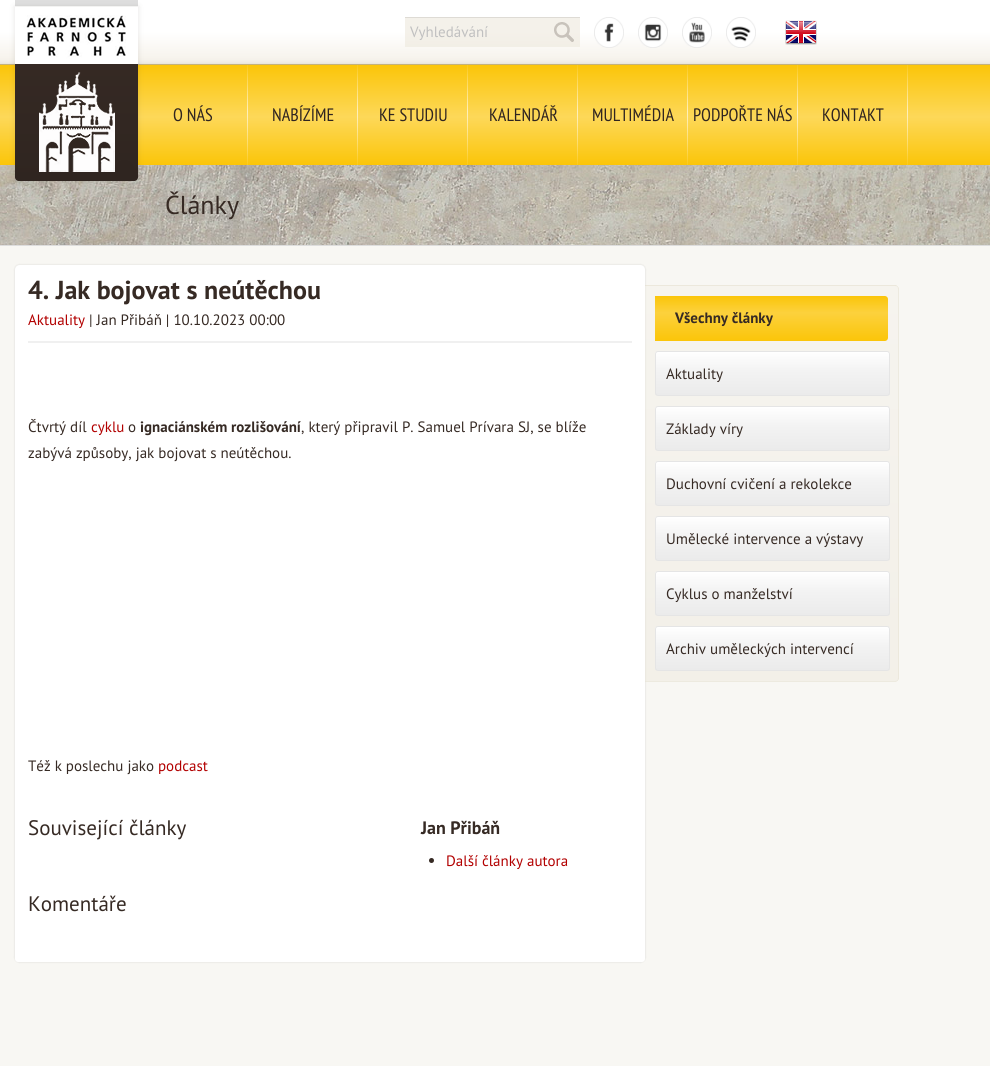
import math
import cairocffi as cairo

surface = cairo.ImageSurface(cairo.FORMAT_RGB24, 990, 1066)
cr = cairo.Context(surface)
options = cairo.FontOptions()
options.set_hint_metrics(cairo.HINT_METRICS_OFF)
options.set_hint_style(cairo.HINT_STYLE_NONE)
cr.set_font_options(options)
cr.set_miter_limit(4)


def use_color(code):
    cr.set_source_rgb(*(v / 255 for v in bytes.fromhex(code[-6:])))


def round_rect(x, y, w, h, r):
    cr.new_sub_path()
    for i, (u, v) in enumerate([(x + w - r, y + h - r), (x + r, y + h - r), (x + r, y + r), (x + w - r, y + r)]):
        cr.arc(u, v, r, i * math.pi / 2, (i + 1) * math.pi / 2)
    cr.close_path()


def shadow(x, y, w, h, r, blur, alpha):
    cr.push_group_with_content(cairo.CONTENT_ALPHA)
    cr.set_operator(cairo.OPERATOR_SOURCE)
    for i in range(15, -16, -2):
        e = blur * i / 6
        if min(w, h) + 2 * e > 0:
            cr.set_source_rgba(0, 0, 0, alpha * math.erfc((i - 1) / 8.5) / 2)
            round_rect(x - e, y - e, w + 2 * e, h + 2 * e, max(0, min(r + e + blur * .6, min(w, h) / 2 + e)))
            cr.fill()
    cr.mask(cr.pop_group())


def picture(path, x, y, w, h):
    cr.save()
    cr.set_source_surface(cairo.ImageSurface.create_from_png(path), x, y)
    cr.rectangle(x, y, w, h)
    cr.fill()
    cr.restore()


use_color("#f8f7f3")
cr.paint()
gradient = cairo.LinearGradient(495, 0, 495, 64)
gradient.add_color_stop_rgba(0, 1, 1, 1, 1)
gradient.add_color_stop_rgba(0.49, 1, 1, 1, 1)
gradient.add_color_stop_rgba(1, 0.961, 0.945, 0.914, 1)
cr.set_source(gradient)
cr.rectangle(0, 0, 990, 64)
cr.fill()
gradient = cairo.LinearGradient(495, 0, 495, 64)
gradient.add_color_stop_rgba(0, 0.957, 0.945, 0.918, 1)
gradient.add_color_stop_rgba(0.49, 0.957, 0.945, 0.918, 1)
gradient.add_color_stop_rgba(1, 0.941, 0.925, 0.882, 1)
cr.set_source(gradient)
cr.rectangle(405, 18, 175, 29)
cr.fill()
use_color("#392c26")
shadow(-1, 63, 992, 103, 0, 2.5, 0.1)
gradient = cairo.LinearGradient(495, 65, 495, 165)
gradient.add_color_stop_rgba(0, 0.984, 0.773, 0.035, 1)
gradient.add_color_stop_rgba(0.52, 0.992, 0.847, 0.349, 1)
gradient.add_color_stop_rgba(1, 0.984, 0.773, 0.035, 1)
cr.set_source(gradient)
cr.rectangle(0, 65, 990, 100)
cr.fill()
use_color("#c4b27a")
cr.rectangle(0, 64, 990, 1)
cr.fill()
use_color("#dedede")
cr.rectangle(15, 0, 123, 6)
cr.fill()
picture("img9.png", 0, 165, 990, 80)
cr.save()
cr.set_fill_rule(cairo.FILL_RULE_EVEN_ODD)
cr.new_path()
cr.move_to(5, 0)
cr.line_to(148, 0)
cr.line_to(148, 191)
cr.line_to(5, 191)
cr.close_path()
cr.move_to(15, 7)
cr.line_to(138, 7)
cr.line_to(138, 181)
cr.line_to(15, 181)
cr.close_path()
cr.clip()
use_color("#392c26")
shadow(14, 6, 125, 176, 0, 2.5, 0.1)
cr.restore()
picture("img1.png", 15, 15, 123, 166)
use_color("#dedbd5")
cr.rectangle(405, 17, 175, 1)
cr.fill()
cr.select_font_face("PT Sans")
cr.set_font_size(15)
use_color("#c0c0c0")
cr.move_to(410, 37)
cr.show_text("Vyhledávání")
picture("img2.png", 554, 22, 20, 20)
picture("img3.png", 594, 17, 30, 31)
picture("img4.png", 638, 17, 30, 31)
picture("img5.png", 682, 17, 30, 31)
picture("img6.png", 726, 17, 30, 31)
picture("img7.png", 785, 20, 32, 25)
picture("img8.png", 247, 65, 1, 100)
cr.select_font_face("PT Sans Narrow")
cr.set_font_size(18)
use_color("#302520")
cr.move_to(173, 121)
cr.show_text("O NÁS")
picture("img8.png", 357, 65, 1, 100)
cr.move_to(272, 121)
cr.show_text("NABÍZÍME")
picture("img8.png", 467, 65, 1, 100)
cr.move_to(379, 121)
cr.show_text("KE STUDIU")
picture("img8.png", 577, 65, 1, 100)
cr.move_to(489, 121)
cr.show_text("KALENDÁŘ")
picture("img8.png", 687, 65, 1, 100)
cr.move_to(592, 121)
cr.show_text("MULTIMÉDIA")
picture("img8.png", 797, 65, 1, 100)
cr.move_to(693, 121)
cr.show_text("PODPOŘTE NÁS")
picture("img8.png", 907, 65, 1, 100)
cr.move_to(822, 121)
cr.show_text("KONTAKT")
use_color("#dddddd")
cr.rectangle(0, 245, 990, 1)
cr.fill()
cr.select_font_face("PT Sans")
cr.set_font_size(26)
use_color("#362a24")
cr.move_to(165, 214)
cr.show_text("Články")
use_color("#000000")
shadow(14, 264, 632, 699, 6, 0.5, 0.05)
use_color("#ffffff")
cr.new_path()
cr.move_to(20, 265)
cr.line_to(640, 265)
cr.curve_to(643, 265, 645, 267, 645, 270)
cr.line_to(645, 959)
cr.curve_to(645, 960.5, 643.5, 962, 642, 962)
cr.line_to(18, 962)
cr.curve_to(16.5, 962, 15, 960.5, 15, 959)
cr.line_to(15, 270)
cr.curve_to(15, 267, 17, 265, 20, 265)
cr.close_path()
cr.fill()
cr.select_font_face("PT Sans", cairo.FONT_SLANT_NORMAL, cairo.FONT_WEIGHT_BOLD)
use_color("#362a24")
cr.move_to(28, 299)
cr.show_text("4. Jak bojovat s neútěchou")
cr.select_font_face("PT Sans")
cr.set_font_size(15)
use_color("#b20000")
cr.move_to(28, 325)
cr.show_text("Aktuality")
use_color("#362a24")
cr.move_to(89, 325)
cr.show_text("| Jan Přibáň | 10.10.2023 00:00")
picture("img10.png", 28, 341, 604, 2)
cr.move_to(28, 432)
cr.show_text("Čtvrtý díl")
use_color("#b20000")
cr.move_to(91, 432)
cr.show_text("cyklu")
use_color("#362a24")
cr.move_to(128, 432)
cr.show_text("o")
cr.select_font_face("PT Sans", cairo.FONT_SLANT_NORMAL, cairo.FONT_WEIGHT_BOLD)
cr.move_to(140, 432)
cr.show_text("ignaciánském rozlišování")
cr.select_font_face("PT Sans")
cr.move_to(301, 432)
cr.show_text(", který připravil P. Samuel Prívara SJ, se blíže")
cr.move_to(28, 458)
cr.show_text("zabývá způsoby, jak bojovat s neútěchou.")
cr.move_to(28, 771)
cr.show_text("Též k poslechu jako")
use_color("#b20000")
cr.move_to(158, 771)
cr.show_text("podcast")
cr.set_font_size(21)
use_color("#362a24")
cr.move_to(28, 835)
cr.show_text("Související články")
cr.select_font_face("PT Sans", cairo.FONT_SLANT_NORMAL, cairo.FONT_WEIGHT_BOLD)
cr.set_font_size(18)
cr.move_to(421, 834)
cr.show_text("Jan Přibáň")
cr.new_path()
cr.arc(431.5, 860.5, 2.5, 0, 2 * math.pi)
cr.fill()
cr.select_font_face("PT Sans")
cr.set_font_size(15)
use_color("#b20000")
cr.move_to(446, 866)
cr.show_text("Další články autora")
cr.set_font_size(21)
use_color("#362a24")
cr.move_to(28, 911)
cr.show_text("Komentáře")
cr.save()
cr.new_path()
cr.move_to(645, 285)
cr.line_to(895, 285)
cr.curve_to(897, 285, 899, 287, 899, 289)
cr.line_to(899, 678)
cr.curve_to(899, 680, 897, 682, 895, 682)
cr.line_to(645, 682)
cr.close_path()
cr.clip()
gradient = cairo.LinearGradient(772, -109, 772, 286)
gradient.add_color_stop_rgba(0, 0.949, 0.937, 0.902, 0.38)
gradient.add_color_stop_rgba(1, 0.914, 0.894, 0.839, 0.38)
cr.set_source(gradient)
cr.rectangle(645, 285, 254, 1)
cr.fill()
gradient = cairo.LinearGradient(772, 286, 772, 681)
gradient.add_color_stop_rgba(0, 0.949, 0.937, 0.902, 0.38)
gradient.add_color_stop_rgba(1, 0.914, 0.894, 0.839, 0.38)
cr.set_source(gradient)
cr.rectangle(645, 286, 254, 395)
cr.fill()
gradient = cairo.LinearGradient(772, 681, 772, 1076)
gradient.add_color_stop_rgba(0, 0.949, 0.937, 0.902, 0.38)
gradient.add_color_stop_rgba(1, 0.914, 0.894, 0.839, 0.38)
cr.set_source(gradient)
cr.rectangle(645, 681, 254, 1)
cr.fill()
cr.restore()
cr.set_source_rgba(0.882, 0.855, 0.784, 0.38)
cr.set_fill_rule(cairo.FILL_RULE_EVEN_ODD)
cr.new_path()
cr.move_to(645, 285)
cr.line_to(895, 285)
cr.curve_to(897, 285, 899, 287, 899, 289)
cr.line_to(899, 678)
cr.curve_to(899, 680, 897, 682, 895, 682)
cr.line_to(645, 682)
cr.close_path()
cr.move_to(645, 286)
cr.line_to(895, 286)
cr.curve_to(897, 286, 898, 287, 898, 289)
cr.line_to(898, 678)
cr.curve_to(898, 680, 897, 681, 895, 681)
cr.line_to(645, 681)
cr.close_path()
cr.fill()
gradient = cairo.LinearGradient(772, 296, 772, 341)
gradient.add_color_stop_rgba(0, 0.984, 0.773, 0.035, 1)
gradient.add_color_stop_rgba(0.37, 0.988, 0.82, 0.239, 1)
gradient.add_color_stop_rgba(1, 0.984, 0.773, 0.035, 1)
cr.set_source(gradient)
cr.new_path()
cr.move_to(655, 296)
cr.line_to(885, 296)
cr.curve_to(886.5, 296, 888, 297.5, 888, 299)
cr.line_to(888, 338)
cr.curve_to(888, 339.5, 886.5, 341, 885, 341)
cr.line_to(655, 341)
cr.close_path()
cr.fill()
cr.select_font_face("PT Sans", cairo.FONT_SLANT_NORMAL, cairo.FONT_WEIGHT_BOLD)
cr.set_font_size(15)
use_color("#362a24")
cr.move_to(675, 323)
cr.show_text("Všechny články")
cr.save()
cr.set_fill_rule(cairo.FILL_RULE_WINDING)
round_rect(655, 351, 235, 45, 3)
cr.clip()
gradient = cairo.LinearGradient(773, 352, 773, 395)
gradient.add_color_stop_rgba(0, 1, 1, 1, 1)
gradient.add_color_stop_rgba(0.43, 0.953, 0.953, 0.953, 1)
gradient.add_color_stop_rgba(0.97, 0.922, 0.922, 0.922, 1)
gradient.add_color_stop_rgba(0.98, 0.922, 0.922, 0.922, 1)
cr.set_source(gradient)
cr.rectangle(655, 352, 235, 43)
cr.fill()
cr.restore()
round_rect(655.5, 351.5, 234, 44, 2.5)
use_color("#e5e5e5")
cr.set_line_width(1)
cr.stroke()
cr.select_font_face("PT Sans")
use_color("#362a24")
cr.move_to(666, 379)
cr.show_text("Aktuality")
cr.save()
cr.set_fill_rule(cairo.FILL_RULE_WINDING)
round_rect(655, 406, 235, 45, 3)
cr.clip()
gradient = cairo.LinearGradient(773, 407, 773, 450)
gradient.add_color_stop_rgba(0, 1, 1, 1, 1)
gradient.add_color_stop_rgba(0.43, 0.953, 0.953, 0.953, 1)
gradient.add_color_stop_rgba(0.97, 0.922, 0.922, 0.922, 1)
gradient.add_color_stop_rgba(0.98, 0.922, 0.922, 0.922, 1)
cr.set_source(gradient)
cr.rectangle(655, 407, 235, 43)
cr.fill()
cr.restore()
round_rect(655.5, 406.5, 234, 44, 2.5)
use_color("#e5e5e5")
cr.stroke()
use_color("#362a24")
cr.move_to(666, 434)
cr.show_text("Základy víry")
cr.save()
cr.set_fill_rule(cairo.FILL_RULE_WINDING)
round_rect(655, 461, 235, 45, 3)
cr.clip()
gradient = cairo.LinearGradient(773, 462, 773, 505)
gradient.add_color_stop_rgba(0, 1, 1, 1, 1)
gradient.add_color_stop_rgba(0.43, 0.953, 0.953, 0.953, 1)
gradient.add_color_stop_rgba(0.97, 0.922, 0.922, 0.922, 1)
gradient.add_color_stop_rgba(0.98, 0.922, 0.922, 0.922, 1)
cr.set_source(gradient)
cr.rectangle(655, 462, 235, 43)
cr.fill()
cr.restore()
round_rect(655.5, 461.5, 234, 44, 2.5)
use_color("#e5e5e5")
cr.stroke()
use_color("#362a24")
cr.move_to(666, 489)
cr.show_text("Duchovní cvičení a rekolekce")
cr.save()
cr.set_fill_rule(cairo.FILL_RULE_WINDING)
round_rect(655, 516, 235, 45, 3)
cr.clip()
gradient = cairo.LinearGradient(773, 517, 773, 560)
gradient.add_color_stop_rgba(0, 1, 1, 1, 1)
gradient.add_color_stop_rgba(0.43, 0.953, 0.953, 0.953, 1)
gradient.add_color_stop_rgba(0.97, 0.922, 0.922, 0.922, 1)
gradient.add_color_stop_rgba(0.98, 0.922, 0.922, 0.922, 1)
cr.set_source(gradient)
cr.rectangle(655, 517, 235, 43)
cr.fill()
cr.restore()
round_rect(655.5, 516.5, 234, 44, 2.5)
use_color("#e5e5e5")
cr.stroke()
use_color("#362a24")
cr.move_to(666, 544)
cr.show_text("Umělecké intervence a výstavy")
cr.save()
cr.set_fill_rule(cairo.FILL_RULE_WINDING)
round_rect(655, 571, 235, 45, 3)
cr.clip()
gradient = cairo.LinearGradient(773, 572, 773, 615)
gradient.add_color_stop_rgba(0, 1, 1, 1, 1)
gradient.add_color_stop_rgba(0.43, 0.953, 0.953, 0.953, 1)
gradient.add_color_stop_rgba(0.97, 0.922, 0.922, 0.922, 1)
gradient.add_color_stop_rgba(0.98, 0.922, 0.922, 0.922, 1)
cr.set_source(gradient)
cr.rectangle(655, 572, 235, 43)
cr.fill()
cr.restore()
round_rect(655.5, 571.5, 234, 44, 2.5)
use_color("#e5e5e5")
cr.stroke()
use_color("#362a24")
cr.move_to(666, 599)
cr.show_text("Cyklus o manželství")
cr.save()
cr.set_fill_rule(cairo.FILL_RULE_WINDING)
round_rect(655, 626, 235, 45, 3)
cr.clip()
gradient = cairo.LinearGradient(773, 627, 773, 670)
gradient.add_color_stop_rgba(0, 1, 1, 1, 1)
gradient.add_color_stop_rgba(0.43, 0.953, 0.953, 0.953, 1)
gradient.add_color_stop_rgba(0.97, 0.922, 0.922, 0.922, 1)
gradient.add_color_stop_rgba(0.98, 0.922, 0.922, 0.922, 1)
cr.set_source(gradient)
cr.rectangle(655, 627, 235, 43)
cr.fill()
cr.restore()
round_rect(655.5, 626.5, 234, 44, 2.5)
use_color("#e5e5e5")
cr.stroke()
use_color("#362a24")
cr.move_to(666, 654)
cr.show_text("Archiv uměleckých intervencí")
surface.write_to_png("result.png")
